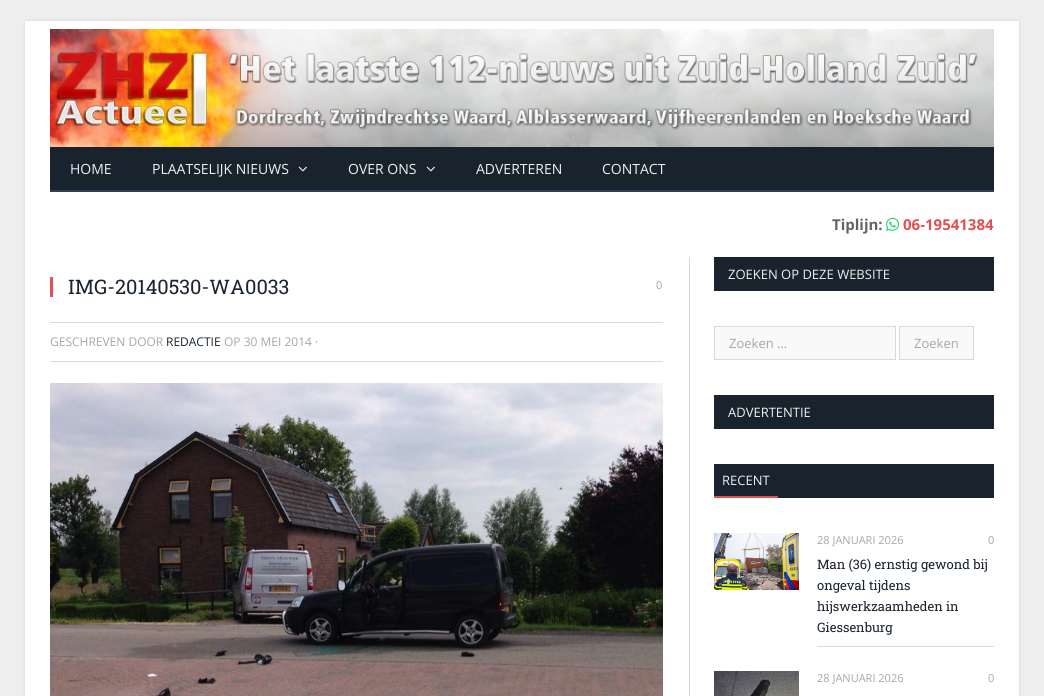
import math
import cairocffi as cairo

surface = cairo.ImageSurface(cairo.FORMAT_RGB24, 1044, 696)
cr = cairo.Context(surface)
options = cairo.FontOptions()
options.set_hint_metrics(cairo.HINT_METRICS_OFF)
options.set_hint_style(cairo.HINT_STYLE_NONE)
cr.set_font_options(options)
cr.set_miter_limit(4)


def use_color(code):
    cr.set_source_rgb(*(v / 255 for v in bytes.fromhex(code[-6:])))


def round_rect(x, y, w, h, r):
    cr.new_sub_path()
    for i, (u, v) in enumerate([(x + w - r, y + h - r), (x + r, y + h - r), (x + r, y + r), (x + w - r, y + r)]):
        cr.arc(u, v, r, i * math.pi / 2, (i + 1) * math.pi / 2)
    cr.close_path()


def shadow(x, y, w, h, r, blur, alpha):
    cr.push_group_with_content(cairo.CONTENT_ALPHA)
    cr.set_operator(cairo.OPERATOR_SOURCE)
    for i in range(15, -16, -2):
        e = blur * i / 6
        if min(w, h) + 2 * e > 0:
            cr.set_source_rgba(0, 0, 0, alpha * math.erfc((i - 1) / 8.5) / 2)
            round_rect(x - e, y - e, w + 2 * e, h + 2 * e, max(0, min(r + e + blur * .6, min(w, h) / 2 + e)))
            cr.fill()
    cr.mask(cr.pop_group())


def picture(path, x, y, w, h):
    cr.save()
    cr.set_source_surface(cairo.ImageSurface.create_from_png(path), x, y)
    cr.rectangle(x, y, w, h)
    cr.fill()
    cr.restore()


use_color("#eeeeee")
cr.paint()
use_color("#000000")
shadow(25, 21, 994, 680, 0, 1.5, 0.12)
use_color("#ffffff")
cr.rectangle(25, 21, 994, 675)
cr.fill()
picture("img1.png", 50, 29, 944, 118)
use_color("#19232d")
cr.rectangle(50, 147, 944, 43)
cr.fill()
use_color("#2f4154")
cr.rectangle(50, 190, 944, 2)
cr.fill()
cr.select_font_face("Open Sans")
cr.set_font_size(14)
use_color("#efefef")
cr.move_to(70, 174)
cr.show_text("HOME")
cr.move_to(152, 174)
cr.show_text("PLAATSELIJK NIEUWS")
picture("img2.png", 298, 166, 9, 6)
cr.move_to(348, 174)
cr.show_text("OVER ONS")
picture("img2.png", 426, 166, 9, 6)
cr.move_to(476, 174)
cr.show_text("ADVERTEREN")
cr.move_to(602, 174)
cr.show_text("CONTACT")
cr.select_font_face("Open Sans", cairo.FONT_SLANT_NORMAL, cairo.FONT_WEIGHT_BOLD)
cr.set_font_size(15)
use_color("#606569")
cr.move_to(832, 230)
cr.show_text("Tiplijn:")
picture("img3.png", 886, 217, 14, 14)
use_color("#e54e53")
cr.move_to(903, 230)
cr.show_text("06-19541384")
cr.rectangle(50, 277, 3, 20)
cr.fill()
cr.select_font_face("Roboto Slab")
cr.set_font_size(20)
use_color("#19232d")
cr.move_to(68, 294)
cr.show_text("IMG-20140530-WA0033")
cr.select_font_face("Open Sans")
cr.set_font_size(11)
use_color("#a6a6a6")
cr.move_to(656, 289)
cr.show_text("0")
use_color("#d9d9d9")
cr.rectangle(50, 322, 613, 1)
cr.fill()
cr.rectangle(50, 361, 613, 1)
cr.fill()
cr.set_font_size(12)
use_color("#a6a6a6")
cr.move_to(50, 346)
cr.show_text("GESCHREVEN DOOR")
use_color("#19232d")
cr.move_to(166, 346)
cr.show_text("REDACTIE")
use_color("#a6a6a6")
cr.move_to(224, 346)
cr.show_text("OP 30 MEI 2014 ·")
picture("img4.png", 50, 383, 613, 313)
use_color("#d9d9d9")
cr.rectangle(689, 257, 1, 439)
cr.fill()
use_color("#19232d")
cr.rectangle(714, 257, 280, 34)
cr.fill()
cr.set_font_size(13)
use_color("#efefef")
cr.move_to(728, 279)
cr.show_text("ZOEKEN OP DEZE WEBSITE")
use_color("#f9f9f9")
cr.rectangle(714.5, 326.5, 181, 33)
cr.fill_preserve()
use_color("#d9d9d9")
cr.set_line_width(1)
cr.stroke()
use_color("#a6a6a6")
cr.move_to(729, 348)
cr.show_text("Zoeken …")
use_color("#f9f9f9")
cr.rectangle(899.5, 326.5, 74, 33)
cr.fill_preserve()
use_color("#d9d9d9")
cr.stroke()
use_color("#a6a6a6")
cr.move_to(914, 348)
cr.show_text("Zoeken")
use_color("#19232d")
cr.rectangle(714, 395, 280, 34)
cr.fill()
use_color("#efefef")
cr.move_to(728, 417)
cr.show_text("ADVERTENTIE")
use_color("#19232d")
cr.rectangle(714, 464, 280, 34)
cr.fill()
use_color("#e54e53")
cr.rectangle(714, 496, 64, 2)
cr.fill()
use_color("#efefef")
cr.move_to(722, 485)
cr.show_text("RECENT")
picture("img5.png", 714, 533, 85, 57)
use_color("#d9d9d9")
cr.rectangle(817, 646, 177, 1)
cr.fill()
cr.set_font_size(11)
use_color("#a6a6a6")
cr.move_to(817, 544)
cr.show_text("28 JANUARI 2026")
cr.move_to(988, 544)
cr.show_text("0")
cr.select_font_face("Roboto Slab")
cr.set_font_size(13)
use_color("#19232d")
cr.move_to(817, 569)
cr.show_text("Man (36) ernstig gewond bij")
cr.move_to(817, 590)
cr.show_text("ongeval tijdens")
cr.move_to(817, 611)
cr.show_text("hijswerkzaamheden in")
cr.move_to(817, 632)
cr.show_text("Giessenburg")
picture("img6.png", 714, 671, 85, 25)
cr.select_font_face("Open Sans")
cr.set_font_size(11)
use_color("#a6a6a6")
cr.move_to(817, 682)
cr.show_text("28 JANUARI 2026")
cr.move_to(988, 682)
cr.show_text("0")
surface.write_to_png("result.png")
